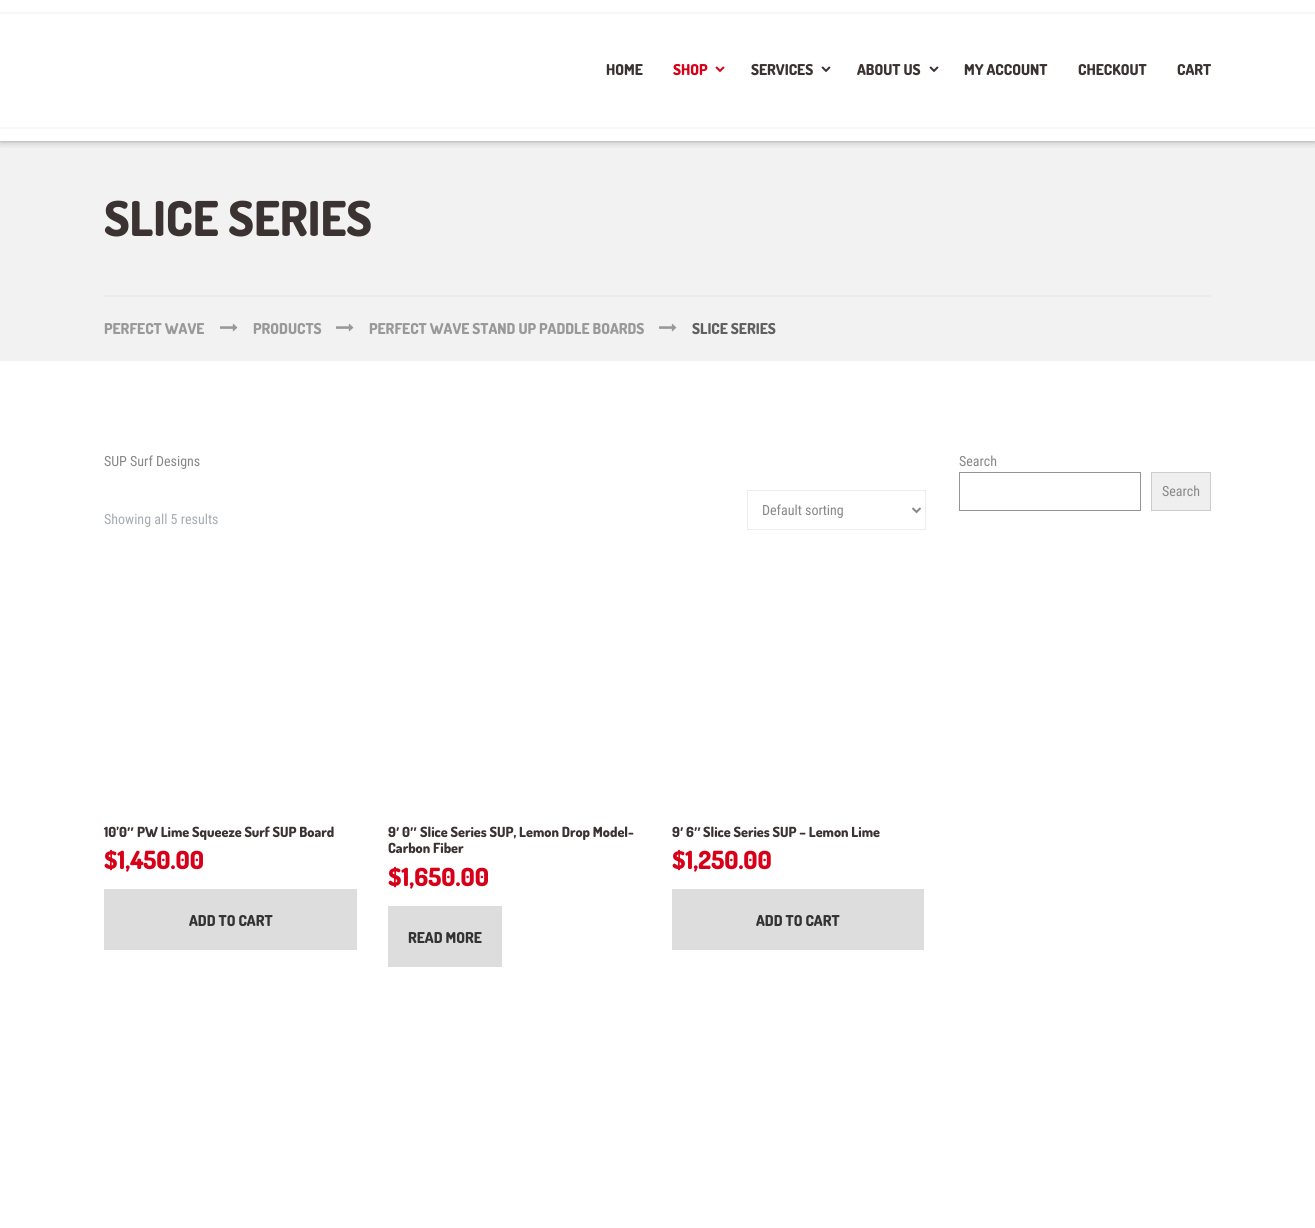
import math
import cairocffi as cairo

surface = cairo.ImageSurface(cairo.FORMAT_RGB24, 1315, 1228)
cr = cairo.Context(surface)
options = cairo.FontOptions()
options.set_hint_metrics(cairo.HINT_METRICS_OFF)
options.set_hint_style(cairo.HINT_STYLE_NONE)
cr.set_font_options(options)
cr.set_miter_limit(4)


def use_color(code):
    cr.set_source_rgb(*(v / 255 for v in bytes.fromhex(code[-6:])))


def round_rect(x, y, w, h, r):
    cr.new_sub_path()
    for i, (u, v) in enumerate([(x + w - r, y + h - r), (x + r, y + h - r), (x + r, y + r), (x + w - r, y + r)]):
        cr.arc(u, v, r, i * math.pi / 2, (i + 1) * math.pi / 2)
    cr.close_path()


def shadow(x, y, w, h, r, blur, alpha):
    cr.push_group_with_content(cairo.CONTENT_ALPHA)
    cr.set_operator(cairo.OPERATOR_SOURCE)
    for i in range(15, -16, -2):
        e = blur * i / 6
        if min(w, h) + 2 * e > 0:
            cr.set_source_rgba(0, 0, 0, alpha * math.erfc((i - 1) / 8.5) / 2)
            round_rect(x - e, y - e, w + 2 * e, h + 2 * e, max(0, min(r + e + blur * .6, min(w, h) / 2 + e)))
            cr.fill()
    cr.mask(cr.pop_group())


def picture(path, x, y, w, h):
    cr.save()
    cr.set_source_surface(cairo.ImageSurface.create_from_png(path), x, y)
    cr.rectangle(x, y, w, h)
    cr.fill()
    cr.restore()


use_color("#ffffff")
cr.paint()
use_color("#f2f2f2")
cr.rectangle(0, 141, 1315, 220)
cr.fill()
cr.save()
cr.rectangle(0, 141, 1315, 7)
cr.clip()
use_color("#000000")
shadow(0, 3, 1315, 141, 0, 3.5, 0.15)
cr.restore()
cr.save()
cr.rectangle(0, 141, 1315, 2)
cr.clip()
use_color("#000000")
shadow(0, -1, 1315, 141, 0, 2, 0.35)
cr.restore()
use_color("#f7f7f7")
cr.rectangle(0, 12, 1315, 2)
cr.fill()
cr.select_font_face("Dosis ExtraBold")
cr.set_font_size(15)
use_color("#3b3331")
cr.move_to(606, 75)
cr.show_text("HOME")
use_color("#d80019")
cr.move_to(673, 75)
cr.show_text("SHOP")
picture("img1.png", 715, 66, 10, 7)
use_color("#3b3331")
cr.move_to(751, 75)
cr.show_text("SERVICES")
picture("img2.png", 821, 66, 10, 7)
cr.move_to(857, 75)
cr.show_text("ABOUT US")
picture("img2.png", 929, 66, 10, 7)
cr.move_to(964, 75)
cr.show_text("MY ACCOUNT")
cr.move_to(1078, 75)
cr.show_text("CHECKOUT")
cr.move_to(1177, 75)
cr.show_text("CART")
use_color("#f7f7f7")
cr.rectangle(0, 127, 1315, 2)
cr.fill()
cr.set_font_size(48)
use_color("#3b3331")
cr.move_to(104, 236)
cr.show_text("SLICE SERIES")
use_color("#ebebeb")
cr.rectangle(104, 295, 1107, 2)
cr.fill()
cr.set_font_size(15)
use_color("#999999")
cr.move_to(104, 334)
cr.show_text("PERFECT WAVE")
picture("img3.png", 220, 323, 18, 9)
cr.move_to(253, 334)
cr.show_text("PRODUCTS")
picture("img3.png", 336, 323, 18, 9)
cr.move_to(369, 334)
cr.show_text("PERFECT WAVE STAND UP PADDLE BOARDS")
picture("img3.png", 659, 323, 18, 9)
use_color("#606060")
cr.move_to(692, 334)
cr.show_text("SLICE SERIES")
cr.select_font_face("Roboto Condensed")
cr.set_font_size(14)
use_color("#888888")
cr.move_to(104, 466)
cr.show_text("SUP Surf Designs")
cr.rectangle(747.5, 490.5, 178, 39)
use_color("#ebedf2")
cr.set_line_width(1)
cr.stroke()
cr.new_path()
cr.move_to(912.5, 508)
cr.line_to(916.5, 512)
cr.line_to(920.5, 508)
use_color("#888888")
cr.set_line_width(2)
cr.stroke()
cr.move_to(762, 515)
cr.show_text("Default sorting")
use_color("#a6acb2")
cr.move_to(104, 524)
cr.show_text("Showing all 5 results")
cr.select_font_face("Dosis ExtraBold")
use_color("#3b3331")
cr.move_to(104, 837)
cr.show_text("10’0")
cr.select_font_face("Liberation Sans", cairo.FONT_SLANT_NORMAL, cairo.FONT_WEIGHT_BOLD)
cr.move_to(127, 837)
cr.show_text("″")
cr.select_font_face("Dosis ExtraBold")
cr.move_to(137, 837)
cr.show_text("PW Lime Squeeze Surf SUP Board")
cr.set_font_size(25)
use_color("#d80019")
cr.move_to(104, 869)
cr.show_text("$1,450.00")
use_color("#dddddd")
cr.rectangle(104, 889, 253, 61)
cr.fill()
cr.set_font_size(15)
use_color("#333333")
cr.move_to(189, 926)
cr.show_text("ADD TO CART")
cr.set_font_size(14)
use_color("#3b3331")
cr.move_to(388, 837)
cr.show_text("9")
cr.select_font_face("Liberation Sans", cairo.FONT_SLANT_NORMAL, cairo.FONT_WEIGHT_BOLD)
cr.move_to(396, 837)
cr.show_text("′")
cr.select_font_face("Dosis ExtraBold")
cr.move_to(402, 837)
cr.show_text("0")
cr.select_font_face("Liberation Sans", cairo.FONT_SLANT_NORMAL, cairo.FONT_WEIGHT_BOLD)
cr.move_to(410, 837)
cr.show_text("″")
cr.select_font_face("Dosis ExtraBold")
cr.move_to(420, 837)
cr.show_text("Slice Series SUP, Lemon Drop Model-")
cr.move_to(388, 853)
cr.show_text("Carbon Fiber")
cr.set_font_size(25)
use_color("#d80019")
cr.move_to(388, 886)
cr.show_text("$1,650.00")
use_color("#dddddd")
cr.rectangle(388, 906, 114, 61)
cr.fill()
cr.set_font_size(15)
use_color("#333333")
cr.move_to(408, 943)
cr.show_text("READ MORE")
cr.set_font_size(14)
use_color("#3b3331")
cr.move_to(672, 837)
cr.show_text("9")
cr.select_font_face("Liberation Sans", cairo.FONT_SLANT_NORMAL, cairo.FONT_WEIGHT_BOLD)
cr.move_to(680, 837)
cr.show_text("′")
cr.select_font_face("Dosis ExtraBold")
cr.move_to(686, 837)
cr.show_text("6")
cr.select_font_face("Liberation Sans", cairo.FONT_SLANT_NORMAL, cairo.FONT_WEIGHT_BOLD)
cr.move_to(694, 837)
cr.show_text("″")
cr.select_font_face("Dosis ExtraBold")
cr.move_to(703, 837)
cr.show_text("Slice Series SUP – Lemon Lime")
cr.set_font_size(25)
use_color("#d80019")
cr.move_to(672, 869)
cr.show_text("$1,250.00")
use_color("#dddddd")
cr.rectangle(672, 889, 252, 61)
cr.fill()
cr.set_font_size(15)
use_color("#333333")
cr.move_to(756, 926)
cr.show_text("ADD TO CART")
cr.select_font_face("Roboto Condensed")
cr.set_font_size(14)
use_color("#888888")
cr.move_to(959, 466)
cr.show_text("Search")
cr.rectangle(959.5, 472.5, 181, 38)
use_color("#949494")
cr.set_line_width(1)
cr.stroke()
use_color("#efefef")
cr.rectangle(1151.5, 472.5, 59, 38)
cr.fill_preserve()
use_color("#cccccc")
cr.stroke()
use_color("#888888")
cr.move_to(1162, 496)
cr.show_text("Search")
surface.write_to_png("result.png")
